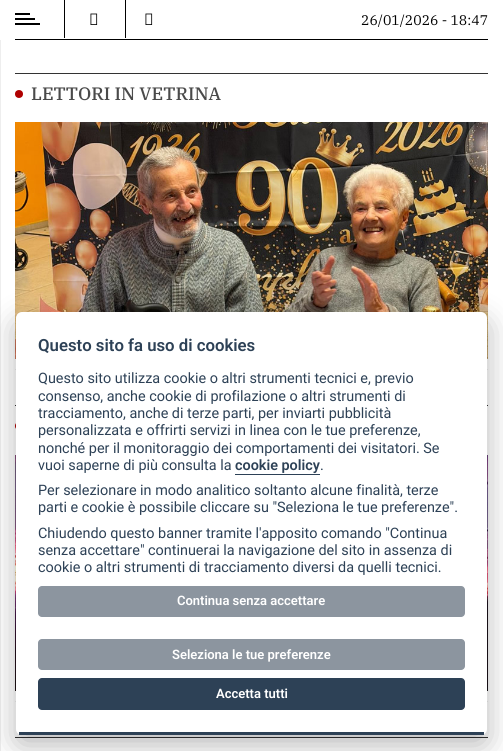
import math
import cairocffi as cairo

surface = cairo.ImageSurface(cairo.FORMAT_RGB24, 503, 751)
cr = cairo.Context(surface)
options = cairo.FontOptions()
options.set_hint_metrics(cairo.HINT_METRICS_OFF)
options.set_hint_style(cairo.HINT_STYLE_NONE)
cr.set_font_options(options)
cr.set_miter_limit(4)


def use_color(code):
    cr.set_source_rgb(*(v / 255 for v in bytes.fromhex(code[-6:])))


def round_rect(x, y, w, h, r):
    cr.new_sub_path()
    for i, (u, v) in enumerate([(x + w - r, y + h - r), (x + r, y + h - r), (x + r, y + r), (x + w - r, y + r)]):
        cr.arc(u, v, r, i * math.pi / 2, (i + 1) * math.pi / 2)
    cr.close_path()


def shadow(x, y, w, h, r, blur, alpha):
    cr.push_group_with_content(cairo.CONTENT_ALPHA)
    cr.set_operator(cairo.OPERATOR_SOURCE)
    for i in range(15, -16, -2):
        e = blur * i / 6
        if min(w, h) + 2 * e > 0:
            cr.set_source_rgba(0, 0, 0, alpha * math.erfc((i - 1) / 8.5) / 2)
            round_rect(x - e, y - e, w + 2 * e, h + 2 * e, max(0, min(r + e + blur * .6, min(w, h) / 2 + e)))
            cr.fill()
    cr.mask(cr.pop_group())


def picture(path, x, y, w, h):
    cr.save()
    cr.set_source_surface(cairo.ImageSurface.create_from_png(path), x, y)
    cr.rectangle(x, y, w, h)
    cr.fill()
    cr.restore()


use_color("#ffffff")
cr.paint()
use_color("#000000")
cr.rectangle(15, 39, 473, 1)
cr.fill()
cr.rectangle(64, 0, 1, 38)
cr.fill()
cr.rectangle(15, 23, 25, 2)
cr.fill()
cr.rectangle(15, 13, 15, 2)
cr.fill()
cr.rectangle(15, 18, 20, 2)
cr.fill()
cr.rectangle(125, 0, 1, 38)
cr.fill()
picture("img1.png", 90, 13, 8, 12)
picture("img1.png", 145, 13, 8, 12)
cr.select_font_face("IBM Plex Serif")
cr.set_font_size(14)
cr.move_to(361, 25)
cr.show_text("26/01/2026 - 18:47")
use_color("#eeeeee")
cr.rectangle(0, 40, 1, 711)
cr.fill()
use_color("#333333")
cr.rectangle(15, 73, 473, 1)
cr.fill()
use_color("#af0000")
cr.arc(19, 94, 4, 0, 2 * math.pi)
cr.fill()
cr.select_font_face("IBM Plex Serif Medium")
cr.set_font_size(18)
use_color("#4a4a4a")
cr.move_to(31, 100)
cr.show_text("LETTORI IN VETRINA")
use_color("#eeeeee")
cr.rectangle(15, 369, 473, 1)
cr.fill()
picture("img2.png", 15, 122, 473, 237)
use_color("#333333")
cr.rectangle(15, 405, 473, 1)
cr.fill()
use_color("#af0000")
cr.arc(19, 426, 4, 0, 2 * math.pi)
cr.fill()
use_color("#eeeeee")
cr.rectangle(15, 701, 473, 1)
cr.fill()
picture("img3.png", 15, 455, 473, 236)
use_color("#333333")
cr.rectangle(15, 737, 473, 1)
cr.fill()
use_color("#020203")
shadow(16, 322, 471, 423, 6, 15, 0.28)
use_color("#ffffff")
round_rect(16, 312, 471, 423, 6)
cr.fill()
use_color("#2d4156")
cr.rectangle(19, 732, 465, 3)
cr.fill()
cr.select_font_face("Roboto SemiBold")
cr.set_font_size(16.75)
cr.move_to(38, 351)
cr.show_text("Questo sito fa uso di cookies")
cr.select_font_face("Roboto")
cr.set_font_size(14.4)
cr.move_to(38, 383)
cr.show_text("Questo sito utilizza cookie o altri strumenti tecnici e, previo")
cr.move_to(38, 401)
cr.show_text("consenso, anche cookie di profilazione o altri strumenti di")
cr.move_to(38, 418)
cr.show_text("tracciamento, anche di terze parti, per inviarti pubblicità")
cr.move_to(38, 435)
cr.show_text("personalizzata e offrirti servizi in linea con le tue preferenze,")
cr.move_to(38, 453)
cr.show_text("nonché per il monitoraggio dei comportamenti dei visitatori. Se")
cr.move_to(38, 470)
cr.show_text("vuoi saperne di più consulta la")
cr.select_font_face("Roboto SemiBold")
cr.move_to(235, 470)
cr.show_text("cookie policy")
cr.rectangle(235, 474, 85, 1)
cr.fill()
cr.select_font_face("Roboto")
cr.move_to(320, 470)
cr.show_text(".")
cr.move_to(38, 495)
cr.show_text("Per selezionare in modo analitico soltanto alcune finalità, terze")
cr.move_to(38, 512)
cr.show_text("parti e cookie è possibile cliccare su \"Seleziona le tue preferenze\".")
cr.move_to(38, 538)
cr.show_text("Chiudendo questo banner tramite l'apposito comando \"Continua")
cr.move_to(38, 555)
cr.show_text("senza accettare\" continuerai la navigazione del sito in assenza di")
cr.move_to(38, 572)
cr.show_text("cookie o altri strumenti di tracciamento diversi da quelli tecnici.")
use_color("#8c959f")
round_rect(38, 586, 427, 31, 4)
cr.fill()
cr.select_font_face("Roboto SemiBold")
cr.set_font_size(13)
use_color("#ffffff")
cr.move_to(177, 605)
cr.show_text("Continua senza accettare")
use_color("#8c959f")
round_rect(38, 639, 427, 31, 4)
cr.fill()
use_color("#ffffff")
cr.move_to(172, 659)
cr.show_text("Seleziona le tue preferenze")
use_color("#2d4156")
round_rect(38, 678, 427, 32, 4)
cr.fill()
use_color("#ffffff")
cr.move_to(216, 698)
cr.show_text("Accetta tutti")
surface.write_to_png("result.png")
